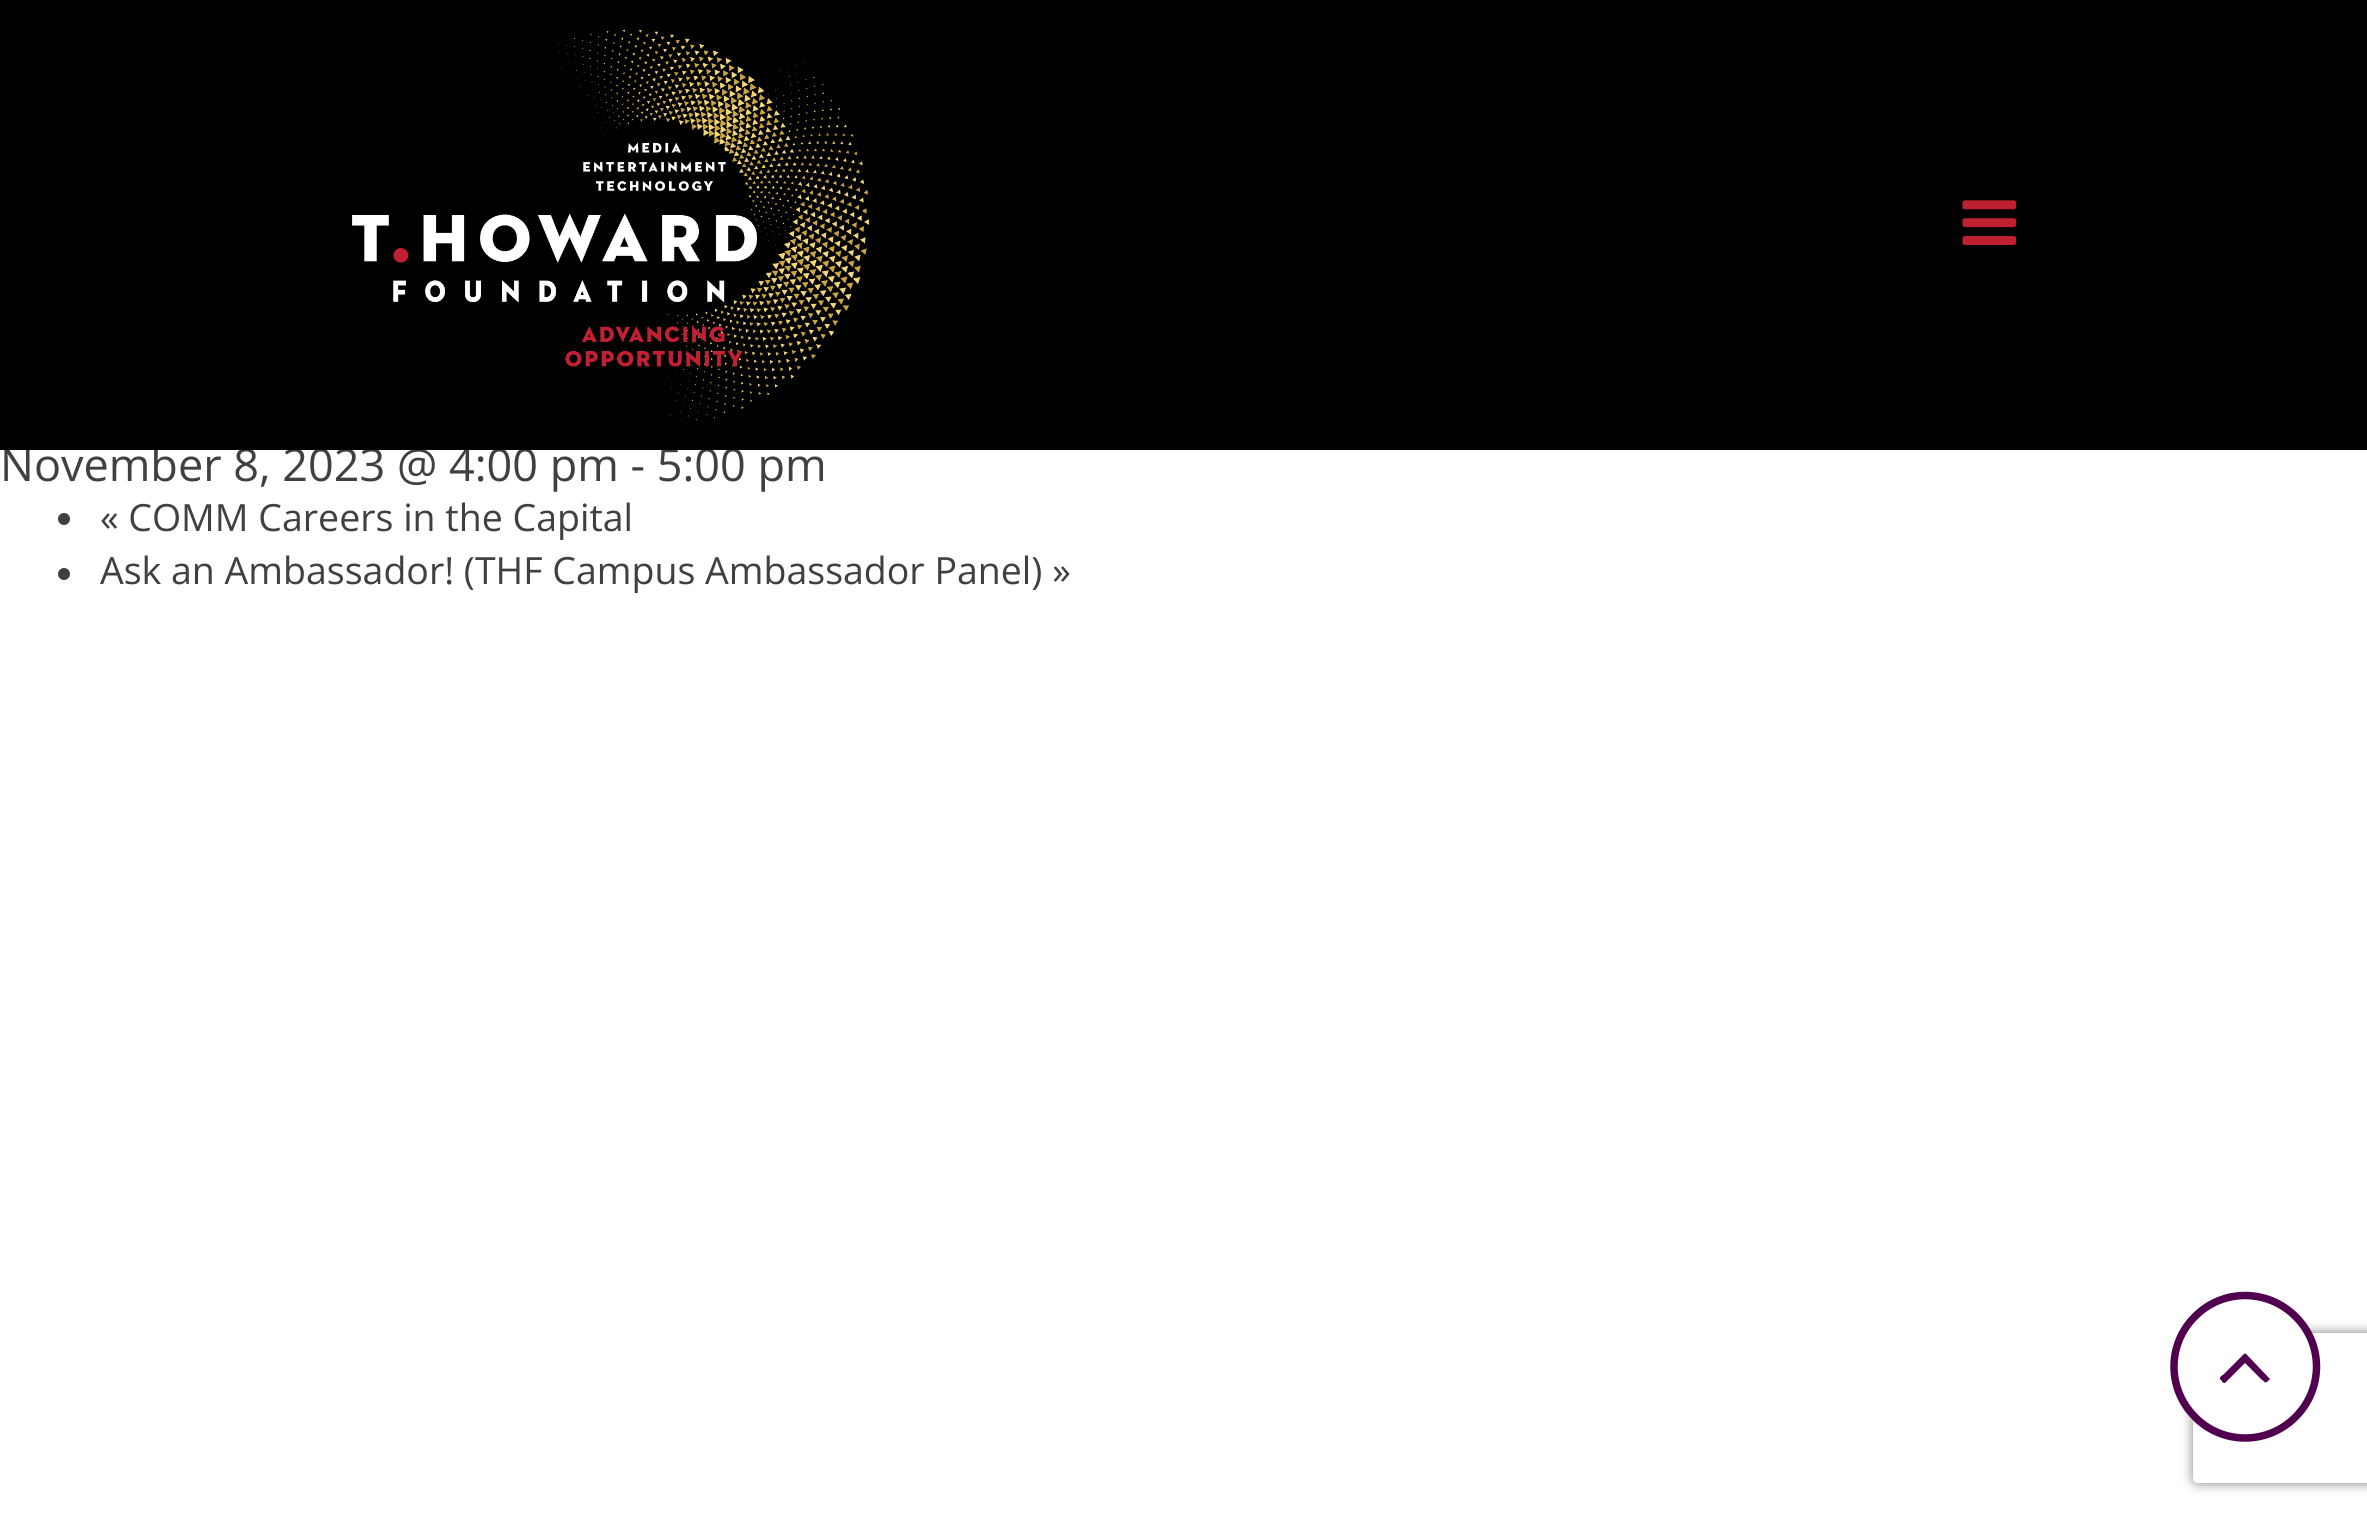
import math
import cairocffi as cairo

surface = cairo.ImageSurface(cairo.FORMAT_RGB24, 2367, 1517)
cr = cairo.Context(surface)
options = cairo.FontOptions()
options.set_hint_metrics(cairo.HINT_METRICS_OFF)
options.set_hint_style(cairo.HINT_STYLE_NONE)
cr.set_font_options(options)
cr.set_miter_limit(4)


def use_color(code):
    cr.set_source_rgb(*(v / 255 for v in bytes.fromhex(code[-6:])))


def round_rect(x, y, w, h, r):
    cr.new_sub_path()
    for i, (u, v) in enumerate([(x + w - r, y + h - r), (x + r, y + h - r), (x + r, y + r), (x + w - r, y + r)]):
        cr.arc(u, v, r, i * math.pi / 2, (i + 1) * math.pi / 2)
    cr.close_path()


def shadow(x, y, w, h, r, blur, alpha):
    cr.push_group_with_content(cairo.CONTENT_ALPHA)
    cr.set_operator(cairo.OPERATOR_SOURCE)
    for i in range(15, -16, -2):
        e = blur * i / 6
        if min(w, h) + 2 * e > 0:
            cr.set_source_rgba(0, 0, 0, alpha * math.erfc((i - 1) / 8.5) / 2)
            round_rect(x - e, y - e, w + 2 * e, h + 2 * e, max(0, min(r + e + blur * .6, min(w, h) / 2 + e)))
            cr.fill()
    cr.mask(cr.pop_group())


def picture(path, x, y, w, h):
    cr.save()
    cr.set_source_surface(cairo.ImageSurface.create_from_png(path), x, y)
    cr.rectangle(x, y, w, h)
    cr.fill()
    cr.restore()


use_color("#ffffff")
cr.paint()
cr.select_font_face("Open Sans")
cr.set_font_size(45)
use_color("#404040")
cr.move_to(0, 481)
cr.show_text("November 8, 2023 @ 4:00 pm - 5:00 pm")
use_color("#000000")
cr.rectangle(0, 0, 2367, 450)
cr.fill()
picture("img1.png", 352, 29, 518, 396)
picture("img2.png", 1962, 200, 55, 45)
use_color("#404040")
cr.arc(64, 519, 6, 0, 2 * math.pi)
cr.fill()
cr.set_font_size(37.5)
cr.move_to(100, 531)
cr.show_text("« COMM Careers in the Capital")
cr.new_path()
cr.arc(64, 574, 6, 0, 2 * math.pi)
cr.fill()
cr.move_to(100, 584)
cr.show_text("Ask an Ambassador! (THF Campus Ambassador Panel) »")
cr.save()
cr.set_fill_rule(cairo.FILL_RULE_EVEN_ODD)
cr.new_path()
cr.move_to(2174, 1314)
cr.line_to(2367, 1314)
cr.line_to(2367, 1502)
cr.line_to(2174, 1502)
cr.close_path()
cr.move_to(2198, 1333)
cr.line_to(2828, 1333)
cr.curve_to(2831, 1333, 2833, 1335, 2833, 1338)
cr.line_to(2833, 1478)
cr.curve_to(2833, 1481, 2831, 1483, 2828, 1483)
cr.line_to(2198, 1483)
cr.curve_to(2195, 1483, 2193, 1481, 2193, 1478)
cr.line_to(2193, 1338)
cr.curve_to(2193, 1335, 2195, 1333, 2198, 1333)
cr.close_path()
cr.clip()
use_color("#808080")
shadow(2193, 1333, 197, 150, 5, 6, 1)
cr.restore()
use_color("#ffffff")
cr.new_path()
cr.move_to(2298, 1314)
cr.curve_to(2327, 1343, 2327, 1390, 2298, 1420)
cr.curve_to(2269, 1449, 2221, 1449, 2192, 1420)
cr.curve_to(2163, 1390, 2163, 1343, 2192, 1314)
cr.curve_to(2221, 1284, 2269, 1284, 2298, 1314)
cr.close_path()
cr.fill()
cr.new_path()
cr.move_to(2295.5, 1316.5)
cr.curve_to(2323.5, 1344, 2323.5, 1389, 2295.5, 1417)
cr.curve_to(2267.5, 1445, 2222.5, 1445, 2195, 1417)
cr.curve_to(2167, 1389, 2167, 1344, 2195, 1316.5)
cr.curve_to(2222.5, 1288.5, 2267.5, 1288.5, 2295.5, 1316.5)
cr.close_path()
use_color("#51004f")
cr.set_line_width(7.5)
cr.stroke()
cr.new_path()
cr.move_to(2269, 1378)
cr.curve_to(2271, 1379, 2269, 1380, 2268, 1381)
cr.curve_to(2265, 1384, 2265, 1382, 2261, 1379)
cr.line_to(2245, 1363)
cr.line_to(2225, 1383)
cr.curve_to(2223, 1383, 2222, 1382, 2222, 1381)
cr.curve_to(2218, 1378, 2220, 1377, 2224, 1374)
cr.line_to(2240, 1358)
cr.curve_to(2246, 1352, 2244, 1352, 2250, 1358)
cr.close_path()
cr.fill()
surface.write_to_png("result.png")
